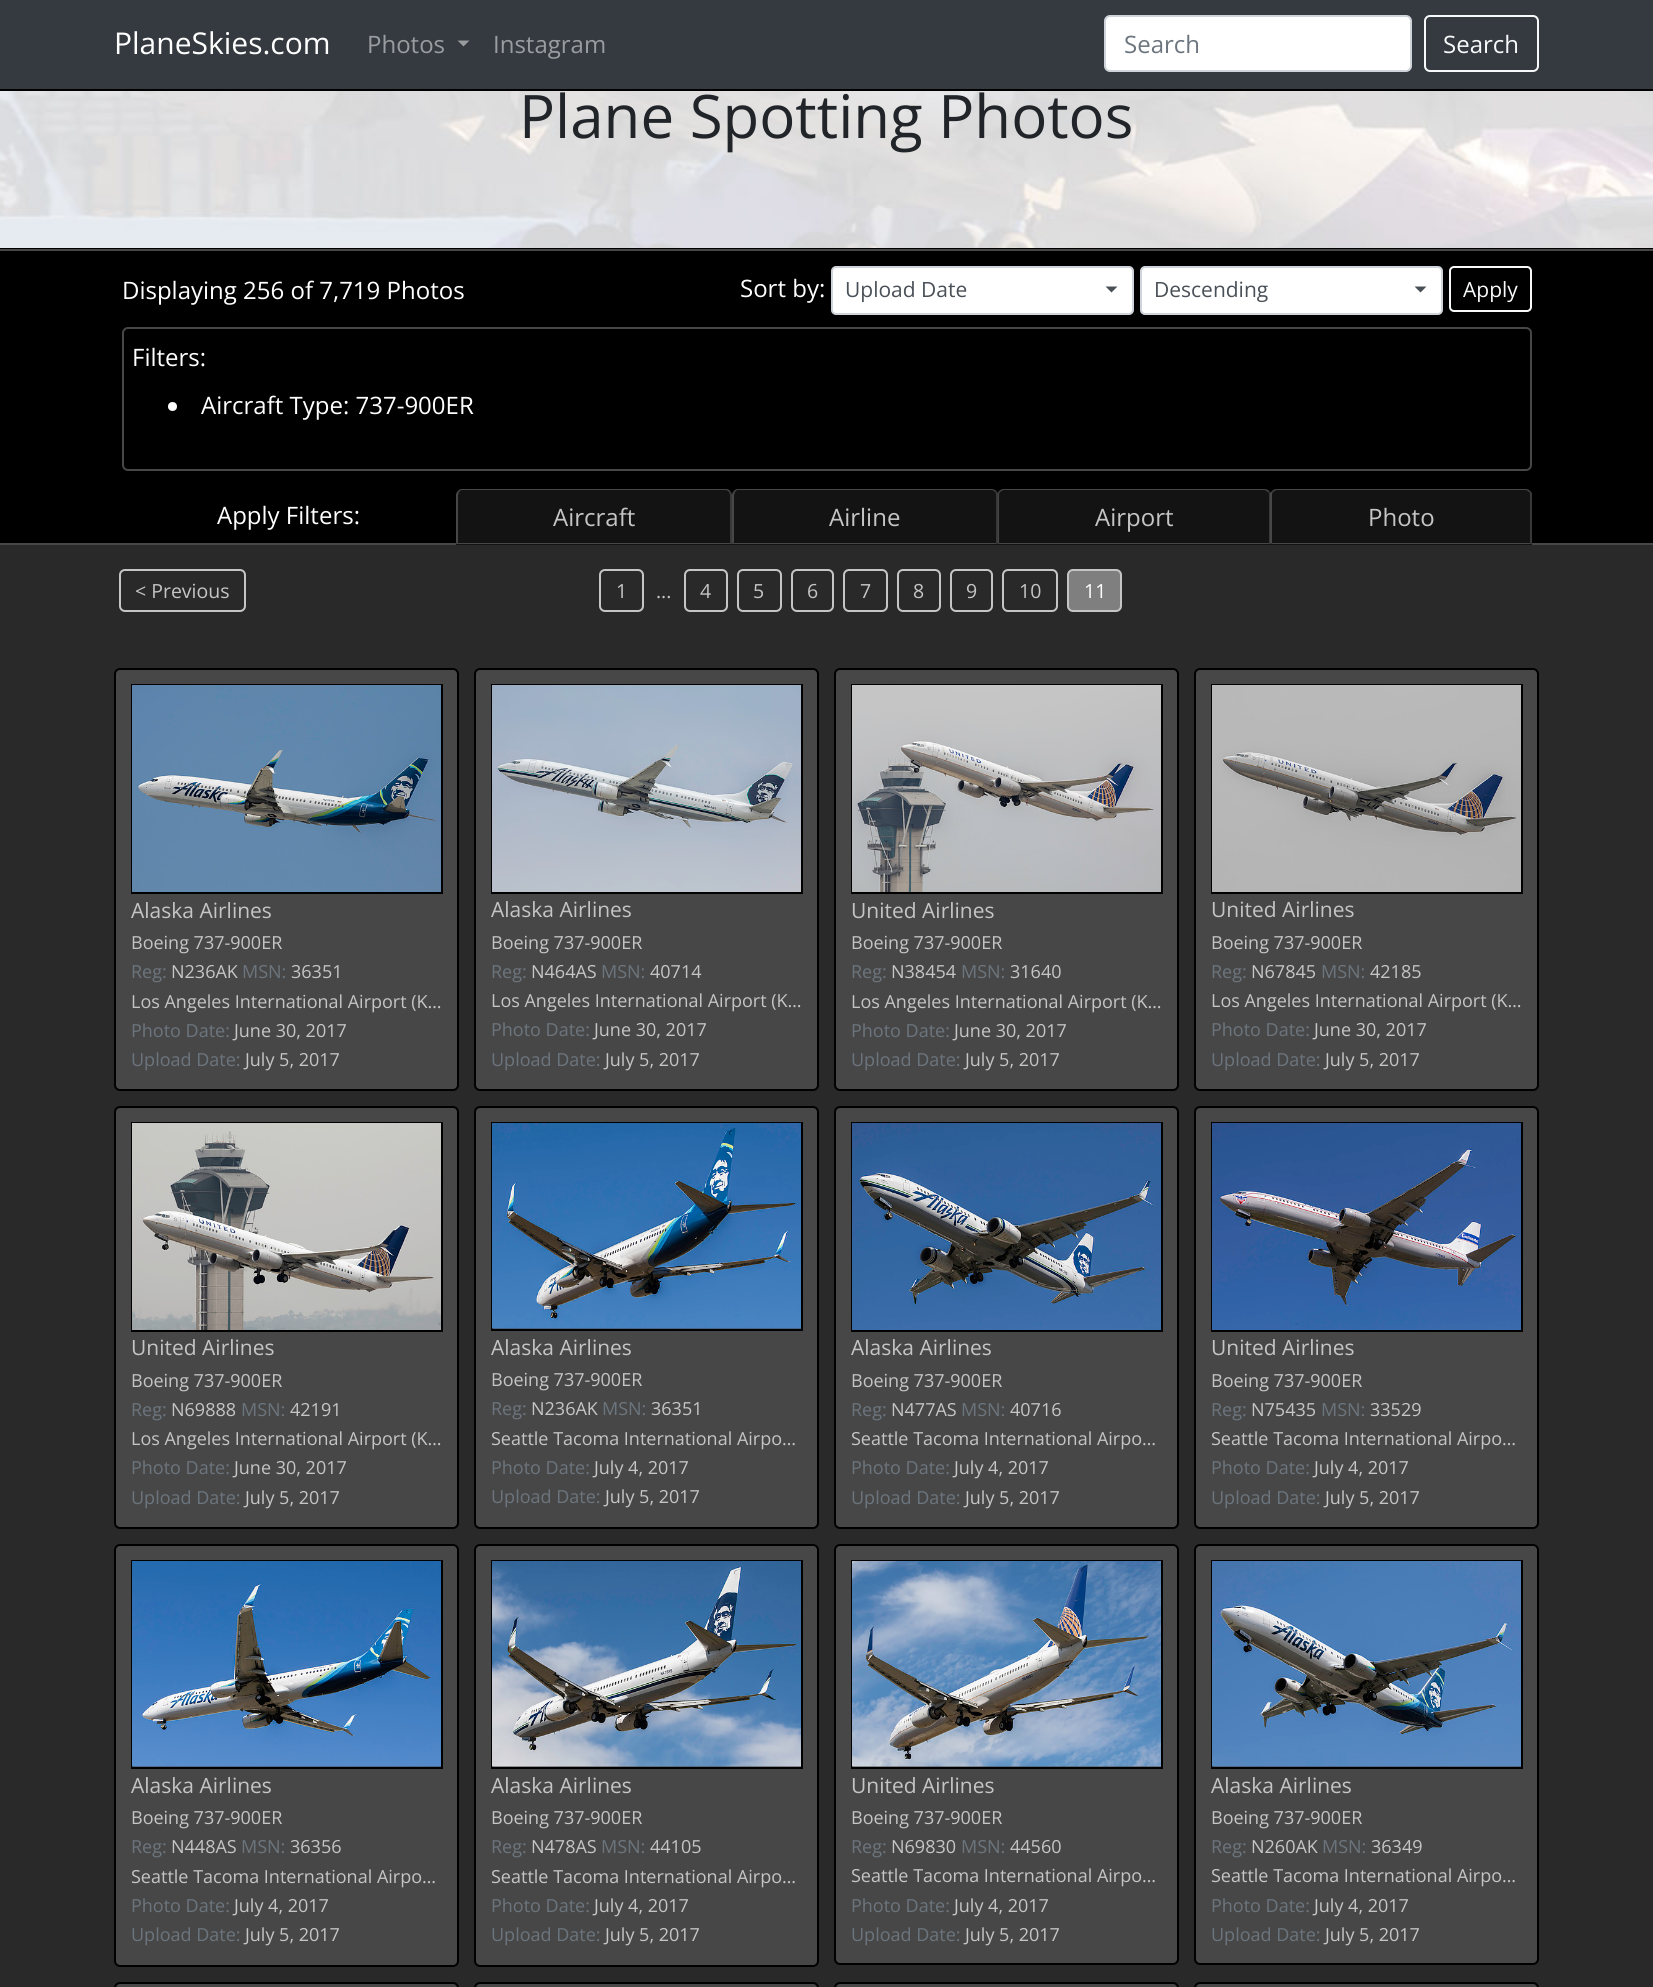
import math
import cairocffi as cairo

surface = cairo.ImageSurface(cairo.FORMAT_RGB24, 1653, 1987)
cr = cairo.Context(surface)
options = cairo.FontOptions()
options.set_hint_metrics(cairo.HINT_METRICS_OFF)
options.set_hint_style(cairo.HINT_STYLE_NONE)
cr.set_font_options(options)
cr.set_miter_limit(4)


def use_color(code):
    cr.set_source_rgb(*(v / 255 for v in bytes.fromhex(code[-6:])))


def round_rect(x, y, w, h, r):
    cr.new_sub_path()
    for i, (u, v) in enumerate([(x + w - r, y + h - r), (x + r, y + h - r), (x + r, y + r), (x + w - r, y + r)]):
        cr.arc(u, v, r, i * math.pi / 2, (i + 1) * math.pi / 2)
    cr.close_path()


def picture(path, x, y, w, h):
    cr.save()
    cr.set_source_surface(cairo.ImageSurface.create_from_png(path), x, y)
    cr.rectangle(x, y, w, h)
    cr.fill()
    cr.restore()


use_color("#292929")
cr.paint()
use_color("#343a40")
cr.rectangle(0, 0, 1653, 89)
cr.fill()
use_color("#000000")
cr.rectangle(0, 89, 1653, 2)
cr.fill()
cr.select_font_face("Open Sans")
cr.set_font_size(30)
use_color("#ffffff")
cr.move_to(114, 54)
cr.show_text("PlaneSkies.com")
cr.set_font_size(24)
use_color("#9a9da0")
cr.move_to(367, 53)
cr.show_text("Photos")
cr.new_path()
cr.move_to(457.5, 40.5)
cr.line_to(469.5, 40.5)
cr.line_to(463.5, 46.5)
cr.close_path()
cr.fill()
cr.move_to(493, 53)
cr.show_text("Instagram")
use_color("#ffffff")
round_rect(1105, 16, 306, 55, 5)
cr.fill_preserve()
use_color("#ced4da")
cr.stroke()
use_color("#6c757d")
cr.move_to(1124, 53)
cr.show_text("Search")
round_rect(1425, 16, 113, 55, 5)
use_color("#f8f9fa")
cr.stroke()
cr.move_to(1443, 53)
cr.show_text("Search")
picture("img1.png", 0, 91, 1653, 157)
use_color("#000000")
cr.rectangle(0, 248, 1653, 1)
cr.fill()
cr.set_font_size(60)
use_color("#212529")
cr.move_to(519, 138)
cr.show_text("Plane Spotting Photos")
use_color("#000000")
cr.rectangle(0, 251, 1653, 292)
cr.fill()
use_color("#474747")
cr.rectangle(0, 249, 1653, 2)
cr.fill()
cr.rectangle(0, 543, 1653, 2)
cr.fill()
cr.set_font_size(24)
use_color("#ffffff")
cr.move_to(122, 299)
cr.show_text("Displaying 256 of 7,719 Photos")
cr.move_to(740, 297)
cr.show_text("Sort by:")
round_rect(832, 267, 301, 47, 4)
cr.fill_preserve()
use_color("#ced4da")
cr.stroke()
cr.set_font_size(21)
use_color("#495057")
cr.move_to(845, 297)
cr.show_text("Upload Date")
use_color("#485056")
cr.new_path()
cr.move_to(1105.5, 286.5)
cr.line_to(1117.5, 286.5)
cr.line_to(1111.5, 292.5)
cr.close_path()
cr.fill()
use_color("#ffffff")
round_rect(1141, 267, 301, 47, 4)
cr.fill_preserve()
use_color("#ced4da")
cr.stroke()
use_color("#495057")
cr.move_to(1154, 297)
cr.show_text("Descending")
use_color("#485056")
cr.new_path()
cr.move_to(1414.5, 286.5)
cr.line_to(1426.5, 286.5)
cr.line_to(1420.5, 292.5)
cr.close_path()
cr.fill()
round_rect(1450, 267, 81, 44, 4)
use_color("#f8f9fa")
cr.stroke()
cr.move_to(1463, 297)
cr.show_text("Apply")
round_rect(123, 328, 1408, 142, 5)
use_color("#474747")
cr.stroke()
cr.set_font_size(24)
use_color("#ffffff")
cr.move_to(132, 366)
cr.show_text("Filters:")
cr.new_path()
cr.arc(172.5, 406.5, 4.5, 0, 2 * math.pi)
cr.fill()
cr.move_to(201, 414)
cr.show_text("Aircraft Type: 737-900ER")
cr.move_to(217, 524)
cr.show_text("Apply Filters:")
use_color("#131313")
cr.new_path()
cr.move_to(462, 489)
cr.line_to(726, 489)
cr.curve_to(729.5, 489, 732, 491.5, 732, 495)
cr.line_to(732, 545)
cr.line_to(456, 545)
cr.line_to(456, 495)
cr.curve_to(456, 491.5, 458.5, 489, 462, 489)
cr.close_path()
cr.fill()
use_color("#474747")
cr.new_path()
cr.move_to(462, 489)
cr.curve_to(460, 489, 459, 490, 458, 491)
cr.line_to(459, 492)
cr.line_to(461, 490)
cr.line_to(726, 490)
cr.curve_to(727, 490, 728, 491, 729, 492)
cr.line_to(730, 491)
cr.curve_to(729, 490, 728, 489, 726, 489)
cr.close_path()
cr.fill()
use_color("#393939")
cr.new_path()
cr.move_to(732, 544)
cr.line_to(732, 495)
cr.curve_to(732, 494, 731, 492, 730, 491)
cr.line_to(729, 492)
cr.line_to(730, 495)
cr.line_to(730, 542)
cr.close_path()
cr.fill()
use_color("#474747")
cr.new_path()
cr.move_to(732, 544)
cr.line_to(456, 544)
cr.line_to(458, 542)
cr.line_to(458, 543)
cr.line_to(730, 543)
cr.line_to(730, 542)
cr.close_path()
cr.fill()
cr.new_path()
cr.move_to(456, 495)
cr.line_to(456, 544)
cr.line_to(458, 542)
cr.line_to(458, 495)
cr.line_to(459, 492)
cr.line_to(458, 491)
cr.curve_to(457, 492, 456, 494, 456, 495)
cr.close_path()
cr.fill()
use_color("#c5c5c5")
cr.move_to(553, 526)
cr.show_text("Aircraft")
use_color("#131313")
cr.new_path()
cr.move_to(738, 489)
cr.line_to(992, 489)
cr.curve_to(995.5, 489, 998, 491.5, 998, 495)
cr.line_to(998, 545)
cr.line_to(732, 545)
cr.line_to(732, 495)
cr.curve_to(732, 491.5, 734.5, 489, 738, 489)
cr.close_path()
cr.fill()
use_color("#474747")
cr.new_path()
cr.move_to(738, 489)
cr.curve_to(736, 489, 735, 490, 734, 491)
cr.line_to(735, 492)
cr.line_to(737, 490)
cr.line_to(992, 490)
cr.curve_to(993, 490, 994, 491, 995, 492)
cr.line_to(996, 491)
cr.curve_to(995, 490, 993, 489, 992, 489)
cr.close_path()
cr.fill()
use_color("#393939")
cr.new_path()
cr.move_to(998, 544)
cr.line_to(996, 543)
cr.line_to(996, 495)
cr.curve_to(996, 494, 996, 493, 995, 492)
cr.line_to(996, 491)
cr.line_to(998, 493)
cr.close_path()
cr.fill()
use_color("#474747")
cr.new_path()
cr.move_to(997, 544)
cr.line_to(732, 544)
cr.line_to(734, 542)
cr.line_to(734, 543)
cr.line_to(996, 543)
cr.close_path()
cr.fill()
cr.new_path()
cr.move_to(732, 495)
cr.line_to(732, 544)
cr.line_to(734, 542)
cr.line_to(734, 495)
cr.line_to(735, 492)
cr.line_to(734, 491)
cr.curve_to(733, 492, 732, 494, 732, 495)
cr.close_path()
cr.fill()
use_color("#c5c5c5")
cr.move_to(829, 526)
cr.show_text("Airline")
use_color("#131313")
cr.new_path()
cr.move_to(1004, 489)
cr.line_to(1265, 489)
cr.curve_to(1268.5, 489, 1271, 491.5, 1271, 495)
cr.line_to(1271, 545)
cr.line_to(998, 545)
cr.line_to(998, 495)
cr.curve_to(998, 491.5, 1000.5, 489, 1004, 489)
cr.close_path()
cr.fill()
use_color("#474747")
cr.new_path()
cr.move_to(1004, 489)
cr.curve_to(1002, 489, 1000, 490, 999, 491)
cr.line_to(1000, 492)
cr.curve_to(1001, 491, 1003, 490, 1004, 490)
cr.line_to(1265, 490)
cr.line_to(1268, 492)
cr.line_to(1269, 491)
cr.curve_to(1268, 490, 1266, 489, 1264, 489)
cr.close_path()
cr.fill()
use_color("#393939")
cr.new_path()
cr.move_to(1269, 491)
cr.curve_to(1270, 492, 1270, 494, 1270, 495)
cr.line_to(1270, 544)
cr.line_to(1269, 543)
cr.line_to(1269, 495)
cr.curve_to(1269, 494, 1269, 493, 1268, 492)
cr.close_path()
cr.fill()
use_color("#474747")
cr.new_path()
cr.move_to(1270, 544)
cr.line_to(1269, 543)
cr.line_to(999, 543)
cr.line_to(998, 544)
cr.close_path()
cr.fill()
cr.new_path()
cr.move_to(999, 491)
cr.curve_to(998, 492, 998, 494, 998, 495)
cr.line_to(998, 544)
cr.line_to(999, 543)
cr.line_to(999, 495)
cr.curve_to(999, 494, 999, 493, 1000, 492)
cr.close_path()
cr.fill()
use_color("#c5c5c5")
cr.move_to(1095, 526)
cr.show_text("Airport")
use_color("#131313")
cr.new_path()
cr.move_to(1277, 489)
cr.line_to(1526, 489)
cr.curve_to(1529.5, 489, 1532, 491.5, 1532, 495)
cr.line_to(1532, 545)
cr.line_to(1271, 545)
cr.line_to(1271, 495)
cr.curve_to(1271, 491.5, 1273.5, 489, 1277, 489)
cr.close_path()
cr.fill()
use_color("#474747")
cr.new_path()
cr.move_to(1276, 489)
cr.curve_to(1275, 489, 1273, 490, 1272, 491)
cr.line_to(1273, 492)
cr.line_to(1276, 490)
cr.line_to(1526, 490)
cr.curve_to(1527, 490, 1528, 491, 1529, 492)
cr.line_to(1530, 491)
cr.curve_to(1529, 490, 1527, 489, 1526, 489)
cr.close_path()
cr.fill()
use_color("#393939")
cr.new_path()
cr.move_to(1532, 544)
cr.line_to(1530, 543)
cr.line_to(1530, 495)
cr.curve_to(1530, 494, 1530, 493, 1529, 492)
cr.line_to(1530, 491)
cr.line_to(1532, 493)
cr.close_path()
cr.fill()
use_color("#474747")
cr.new_path()
cr.move_to(1531, 544)
cr.line_to(1271, 544)
cr.line_to(1272, 543)
cr.line_to(1530, 543)
cr.close_path()
cr.fill()
cr.new_path()
cr.move_to(1270, 493)
cr.line_to(1272, 491)
cr.line_to(1273, 492)
cr.curve_to(1272, 493, 1272, 494, 1272, 495)
cr.line_to(1272, 543)
cr.line_to(1270, 544)
cr.close_path()
cr.fill()
use_color("#c5c5c5")
cr.move_to(1368, 526)
cr.show_text("Photo")
round_rect(120, 570, 125, 41, 5)
cr.stroke()
cr.set_font_size(19.5)
cr.move_to(135, 598)
cr.show_text("< Previous")
round_rect(600, 570, 43, 41, 5)
cr.stroke()
cr.move_to(616, 598)
cr.show_text("1")
cr.move_to(656, 598)
cr.show_text("...")
round_rect(685, 570, 42, 41, 5)
cr.stroke()
cr.move_to(700, 598)
cr.show_text("4")
round_rect(738, 570, 43, 41, 5)
cr.stroke()
cr.move_to(753, 598)
cr.show_text("5")
round_rect(792, 570, 41, 41, 5)
cr.stroke()
cr.move_to(807, 598)
cr.show_text("6")
round_rect(844, 570, 43, 41, 5)
cr.stroke()
cr.move_to(860, 598)
cr.show_text("7")
round_rect(898, 570, 42, 41, 5)
cr.stroke()
cr.move_to(913, 598)
cr.show_text("8")
round_rect(951, 570, 41, 41, 5)
cr.stroke()
cr.move_to(966, 598)
cr.show_text("9")
round_rect(1003, 570, 54, 41, 5)
cr.stroke()
cr.move_to(1019, 598)
cr.show_text("10")
use_color("#807f80")
round_rect(1068, 570, 53, 41, 5)
cr.fill_preserve()
use_color("#c5c5c5")
cr.stroke()
use_color("#ffffff")
cr.move_to(1084, 598)
cr.show_text("11")
use_color("#474747")
round_rect(115, 669, 343, 421, 5)
cr.fill_preserve()
use_color("#000000")
cr.stroke()
cr.rectangle(132, 685, 310, 208)
cr.stroke()
picture("img2.png", 132, 685, 309, 207)
cr.set_font_size(21)
use_color("#c5c5c5")
cr.move_to(131, 918)
cr.show_text("Alaska Airlines")
cr.set_font_size(18)
cr.move_to(131, 949)
cr.show_text("Boeing 737-900ER")
use_color("#6c757d")
cr.move_to(131, 978)
cr.show_text("Reg:")
use_color("#c5c5c5")
cr.move_to(171, 978)
cr.show_text("N236AK")
use_color("#6c757d")
cr.move_to(242, 978)
cr.show_text("MSN:")
use_color("#c5c5c5")
cr.move_to(291, 978)
cr.show_text("36351")
cr.move_to(131, 1008)
cr.show_text("Los Angeles International Airport (K…")
use_color("#6c757d")
cr.move_to(131, 1037)
cr.show_text("Photo Date:")
use_color("#c5c5c5")
cr.move_to(234, 1037)
cr.show_text("June 30, 2017")
use_color("#6c757d")
cr.move_to(131, 1066)
cr.show_text("Upload Date:")
use_color("#c5c5c5")
cr.move_to(245, 1066)
cr.show_text("July 5, 2017")
use_color("#474747")
round_rect(475, 669, 343, 421, 5)
cr.fill_preserve()
use_color("#000000")
cr.stroke()
cr.rectangle(492, 685, 310, 208)
cr.stroke()
picture("img3.png", 492, 685, 309, 207)
cr.set_font_size(21)
use_color("#c5c5c5")
cr.move_to(491, 917)
cr.show_text("Alaska Airlines")
cr.set_font_size(18)
cr.move_to(491, 949)
cr.show_text("Boeing 737-900ER")
use_color("#6c757d")
cr.move_to(491, 978)
cr.show_text("Reg:")
use_color("#c5c5c5")
cr.move_to(531, 978)
cr.show_text("N464AS")
use_color("#6c757d")
cr.move_to(601, 978)
cr.show_text("MSN:")
use_color("#c5c5c5")
cr.move_to(650, 978)
cr.show_text("40714")
cr.move_to(491, 1007)
cr.show_text("Los Angeles International Airport (K…")
use_color("#6c757d")
cr.move_to(491, 1036)
cr.show_text("Photo Date:")
use_color("#c5c5c5")
cr.move_to(594, 1036)
cr.show_text("June 30, 2017")
use_color("#6c757d")
cr.move_to(491, 1066)
cr.show_text("Upload Date:")
use_color("#c5c5c5")
cr.move_to(605, 1066)
cr.show_text("July 5, 2017")
use_color("#474747")
round_rect(835, 669, 343, 421, 5)
cr.fill_preserve()
use_color("#000000")
cr.stroke()
cr.rectangle(852, 685, 310, 208)
cr.stroke()
picture("img4.png", 852, 685, 309, 207)
cr.set_font_size(21)
use_color("#c5c5c5")
cr.move_to(851, 918)
cr.show_text("United Airlines")
cr.set_font_size(18)
cr.move_to(851, 949)
cr.show_text("Boeing 737-900ER")
use_color("#6c757d")
cr.move_to(851, 978)
cr.show_text("Reg:")
use_color("#c5c5c5")
cr.move_to(891, 978)
cr.show_text("N38454")
use_color("#6c757d")
cr.move_to(961, 978)
cr.show_text("MSN:")
use_color("#c5c5c5")
cr.move_to(1010, 978)
cr.show_text("31640")
cr.move_to(851, 1008)
cr.show_text("Los Angeles International Airport (K…")
use_color("#6c757d")
cr.move_to(851, 1037)
cr.show_text("Photo Date:")
use_color("#c5c5c5")
cr.move_to(954, 1037)
cr.show_text("June 30, 2017")
use_color("#6c757d")
cr.move_to(851, 1066)
cr.show_text("Upload Date:")
use_color("#c5c5c5")
cr.move_to(965, 1066)
cr.show_text("July 5, 2017")
use_color("#474747")
round_rect(1195, 669, 343, 421, 5)
cr.fill_preserve()
use_color("#000000")
cr.stroke()
cr.rectangle(1212, 685, 310, 208)
cr.stroke()
picture("img5.png", 1212, 685, 309, 207)
cr.set_font_size(21)
use_color("#c5c5c5")
cr.move_to(1211, 917)
cr.show_text("United Airlines")
cr.set_font_size(18)
cr.move_to(1211, 949)
cr.show_text("Boeing 737-900ER")
use_color("#6c757d")
cr.move_to(1211, 978)
cr.show_text("Reg:")
use_color("#c5c5c5")
cr.move_to(1251, 978)
cr.show_text("N67845")
use_color("#6c757d")
cr.move_to(1321, 978)
cr.show_text("MSN:")
use_color("#c5c5c5")
cr.move_to(1370, 978)
cr.show_text("42185")
cr.move_to(1211, 1007)
cr.show_text("Los Angeles International Airport (K…")
use_color("#6c757d")
cr.move_to(1211, 1036)
cr.show_text("Photo Date:")
use_color("#c5c5c5")
cr.move_to(1314, 1036)
cr.show_text("June 30, 2017")
use_color("#6c757d")
cr.move_to(1211, 1066)
cr.show_text("Upload Date:")
use_color("#c5c5c5")
cr.move_to(1325, 1066)
cr.show_text("July 5, 2017")
use_color("#474747")
round_rect(115, 1107, 343, 421, 5)
cr.fill_preserve()
use_color("#000000")
cr.stroke()
cr.rectangle(132, 1123, 310, 208)
cr.stroke()
picture("img6.png", 132, 1123, 309, 207)
cr.set_font_size(21)
use_color("#c5c5c5")
cr.move_to(131, 1355)
cr.show_text("United Airlines")
cr.set_font_size(18)
cr.move_to(131, 1387)
cr.show_text("Boeing 737-900ER")
use_color("#6c757d")
cr.move_to(131, 1416)
cr.show_text("Reg:")
use_color("#c5c5c5")
cr.move_to(171, 1416)
cr.show_text("N69888")
use_color("#6c757d")
cr.move_to(241, 1416)
cr.show_text("MSN:")
use_color("#c5c5c5")
cr.move_to(290, 1416)
cr.show_text("42191")
cr.move_to(131, 1445)
cr.show_text("Los Angeles International Airport (K…")
use_color("#6c757d")
cr.move_to(131, 1474)
cr.show_text("Photo Date:")
use_color("#c5c5c5")
cr.move_to(234, 1474)
cr.show_text("June 30, 2017")
use_color("#6c757d")
cr.move_to(131, 1504)
cr.show_text("Upload Date:")
use_color("#c5c5c5")
cr.move_to(245, 1504)
cr.show_text("July 5, 2017")
use_color("#474747")
round_rect(475, 1107, 343, 421, 5)
cr.fill_preserve()
use_color("#000000")
cr.stroke()
cr.rectangle(492, 1123, 310, 207)
cr.stroke()
picture("img7.png", 492, 1123, 309, 206)
cr.set_font_size(21)
use_color("#c5c5c5")
cr.move_to(491, 1355)
cr.show_text("Alaska Airlines")
cr.set_font_size(18)
cr.move_to(491, 1386)
cr.show_text("Boeing 737-900ER")
use_color("#6c757d")
cr.move_to(491, 1415)
cr.show_text("Reg:")
use_color("#c5c5c5")
cr.move_to(531, 1415)
cr.show_text("N236AK")
use_color("#6c757d")
cr.move_to(602, 1415)
cr.show_text("MSN:")
use_color("#c5c5c5")
cr.move_to(651, 1415)
cr.show_text("36351")
cr.move_to(491, 1445)
cr.show_text("Seattle Tacoma International Airpo…")
use_color("#6c757d")
cr.move_to(491, 1474)
cr.show_text("Photo Date:")
use_color("#c5c5c5")
cr.move_to(594, 1474)
cr.show_text("July 4, 2017")
use_color("#6c757d")
cr.move_to(491, 1503)
cr.show_text("Upload Date:")
use_color("#c5c5c5")
cr.move_to(605, 1503)
cr.show_text("July 5, 2017")
use_color("#474747")
round_rect(835, 1107, 343, 421, 5)
cr.fill_preserve()
use_color("#000000")
cr.stroke()
cr.rectangle(852, 1123, 310, 208)
cr.stroke()
picture("img8.png", 852, 1123, 309, 207)
cr.set_font_size(21)
use_color("#c5c5c5")
cr.move_to(851, 1355)
cr.show_text("Alaska Airlines")
cr.set_font_size(18)
cr.move_to(851, 1387)
cr.show_text("Boeing 737-900ER")
use_color("#6c757d")
cr.move_to(851, 1416)
cr.show_text("Reg:")
use_color("#c5c5c5")
cr.move_to(891, 1416)
cr.show_text("N477AS")
use_color("#6c757d")
cr.move_to(961, 1416)
cr.show_text("MSN:")
use_color("#c5c5c5")
cr.move_to(1010, 1416)
cr.show_text("40716")
cr.move_to(851, 1445)
cr.show_text("Seattle Tacoma International Airpo…")
use_color("#6c757d")
cr.move_to(851, 1474)
cr.show_text("Photo Date:")
use_color("#c5c5c5")
cr.move_to(954, 1474)
cr.show_text("July 4, 2017")
use_color("#6c757d")
cr.move_to(851, 1504)
cr.show_text("Upload Date:")
use_color("#c5c5c5")
cr.move_to(965, 1504)
cr.show_text("July 5, 2017")
use_color("#474747")
round_rect(1195, 1107, 343, 421, 5)
cr.fill_preserve()
use_color("#000000")
cr.stroke()
cr.rectangle(1212, 1123, 310, 208)
cr.stroke()
picture("img9.png", 1212, 1123, 309, 207)
cr.set_font_size(21)
use_color("#c5c5c5")
cr.move_to(1211, 1355)
cr.show_text("United Airlines")
cr.set_font_size(18)
cr.move_to(1211, 1387)
cr.show_text("Boeing 737-900ER")
use_color("#6c757d")
cr.move_to(1211, 1416)
cr.show_text("Reg:")
use_color("#c5c5c5")
cr.move_to(1251, 1416)
cr.show_text("N75435")
use_color("#6c757d")
cr.move_to(1321, 1416)
cr.show_text("MSN:")
use_color("#c5c5c5")
cr.move_to(1370, 1416)
cr.show_text("33529")
cr.move_to(1211, 1445)
cr.show_text("Seattle Tacoma International Airpo…")
use_color("#6c757d")
cr.move_to(1211, 1474)
cr.show_text("Photo Date:")
use_color("#c5c5c5")
cr.move_to(1314, 1474)
cr.show_text("July 4, 2017")
use_color("#6c757d")
cr.move_to(1211, 1504)
cr.show_text("Upload Date:")
use_color("#c5c5c5")
cr.move_to(1325, 1504)
cr.show_text("July 5, 2017")
use_color("#474747")
round_rect(115, 1545, 343, 421, 5)
cr.fill_preserve()
use_color("#000000")
cr.stroke()
cr.rectangle(132, 1561, 310, 207)
cr.stroke()
picture("img10.png", 132, 1561, 309, 206)
cr.set_font_size(21)
use_color("#c5c5c5")
cr.move_to(131, 1793)
cr.show_text("Alaska Airlines")
cr.set_font_size(18)
cr.move_to(131, 1824)
cr.show_text("Boeing 737-900ER")
use_color("#6c757d")
cr.move_to(131, 1853)
cr.show_text("Reg:")
use_color("#c5c5c5")
cr.move_to(171, 1853)
cr.show_text("N448AS")
use_color("#6c757d")
cr.move_to(241, 1853)
cr.show_text("MSN:")
use_color("#c5c5c5")
cr.move_to(290, 1853)
cr.show_text("36356")
cr.move_to(131, 1883)
cr.show_text("Seattle Tacoma International Airpo…")
use_color("#6c757d")
cr.move_to(131, 1912)
cr.show_text("Photo Date:")
use_color("#c5c5c5")
cr.move_to(234, 1912)
cr.show_text("July 4, 2017")
use_color("#6c757d")
cr.move_to(131, 1941)
cr.show_text("Upload Date:")
use_color("#c5c5c5")
cr.move_to(245, 1941)
cr.show_text("July 5, 2017")
use_color("#474747")
round_rect(475, 1545, 343, 421, 5)
cr.fill_preserve()
use_color("#000000")
cr.stroke()
cr.rectangle(492, 1561, 310, 207)
cr.stroke()
picture("img11.png", 492, 1561, 309, 206)
cr.set_font_size(21)
use_color("#c5c5c5")
cr.move_to(491, 1793)
cr.show_text("Alaska Airlines")
cr.set_font_size(18)
cr.move_to(491, 1824)
cr.show_text("Boeing 737-900ER")
use_color("#6c757d")
cr.move_to(491, 1853)
cr.show_text("Reg:")
use_color("#c5c5c5")
cr.move_to(531, 1853)
cr.show_text("N478AS")
use_color("#6c757d")
cr.move_to(601, 1853)
cr.show_text("MSN:")
use_color("#c5c5c5")
cr.move_to(650, 1853)
cr.show_text("44105")
cr.move_to(491, 1883)
cr.show_text("Seattle Tacoma International Airpo…")
use_color("#6c757d")
cr.move_to(491, 1912)
cr.show_text("Photo Date:")
use_color("#c5c5c5")
cr.move_to(594, 1912)
cr.show_text("July 4, 2017")
use_color("#6c757d")
cr.move_to(491, 1941)
cr.show_text("Upload Date:")
use_color("#c5c5c5")
cr.move_to(605, 1941)
cr.show_text("July 5, 2017")
use_color("#474747")
round_rect(835, 1545, 343, 419, 5)
cr.fill_preserve()
use_color("#000000")
cr.stroke()
cr.rectangle(852, 1561, 310, 207)
cr.stroke()
picture("img12.png", 852, 1561, 309, 206)
cr.set_font_size(21)
use_color("#c5c5c5")
cr.move_to(851, 1793)
cr.show_text("United Airlines")
cr.set_font_size(18)
cr.move_to(851, 1824)
cr.show_text("Boeing 737-900ER")
use_color("#6c757d")
cr.move_to(851, 1853)
cr.show_text("Reg:")
use_color("#c5c5c5")
cr.move_to(891, 1853)
cr.show_text("N69830")
use_color("#6c757d")
cr.move_to(961, 1853)
cr.show_text("MSN:")
use_color("#c5c5c5")
cr.move_to(1010, 1853)
cr.show_text("44560")
cr.move_to(851, 1882)
cr.show_text("Seattle Tacoma International Airpo…")
use_color("#6c757d")
cr.move_to(851, 1912)
cr.show_text("Photo Date:")
use_color("#c5c5c5")
cr.move_to(954, 1912)
cr.show_text("July 4, 2017")
use_color("#6c757d")
cr.move_to(851, 1941)
cr.show_text("Upload Date:")
use_color("#c5c5c5")
cr.move_to(965, 1941)
cr.show_text("July 5, 2017")
use_color("#474747")
round_rect(1195, 1545, 343, 419, 5)
cr.fill_preserve()
use_color("#000000")
cr.stroke()
cr.rectangle(1212, 1561, 310, 207)
cr.stroke()
picture("img13.png", 1212, 1561, 309, 206)
cr.set_font_size(21)
use_color("#c5c5c5")
cr.move_to(1211, 1793)
cr.show_text("Alaska Airlines")
cr.set_font_size(18)
cr.move_to(1211, 1824)
cr.show_text("Boeing 737-900ER")
use_color("#6c757d")
cr.move_to(1211, 1853)
cr.show_text("Reg:")
use_color("#c5c5c5")
cr.move_to(1251, 1853)
cr.show_text("N260AK")
use_color("#6c757d")
cr.move_to(1322, 1853)
cr.show_text("MSN:")
use_color("#c5c5c5")
cr.move_to(1371, 1853)
cr.show_text("36349")
cr.move_to(1211, 1882)
cr.show_text("Seattle Tacoma International Airpo…")
use_color("#6c757d")
cr.move_to(1211, 1912)
cr.show_text("Photo Date:")
use_color("#c5c5c5")
cr.move_to(1314, 1912)
cr.show_text("July 4, 2017")
use_color("#6c757d")
cr.move_to(1211, 1941)
cr.show_text("Upload Date:")
use_color("#c5c5c5")
cr.move_to(1325, 1941)
cr.show_text("July 5, 2017")
use_color("#474747")
round_rect(115, 1983, 343, 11, 5)
cr.fill_preserve()
use_color("#000000")
cr.stroke()
use_color("#474747")
round_rect(475, 1983, 343, 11, 5)
cr.fill_preserve()
use_color("#000000")
cr.stroke()
use_color("#474747")
round_rect(835, 1983, 343, 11, 5)
cr.fill_preserve()
use_color("#000000")
cr.stroke()
use_color("#474747")
round_rect(1195, 1983, 343, 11, 5)
cr.fill_preserve()
use_color("#000000")
cr.stroke()
surface.write_to_png("result.png")
